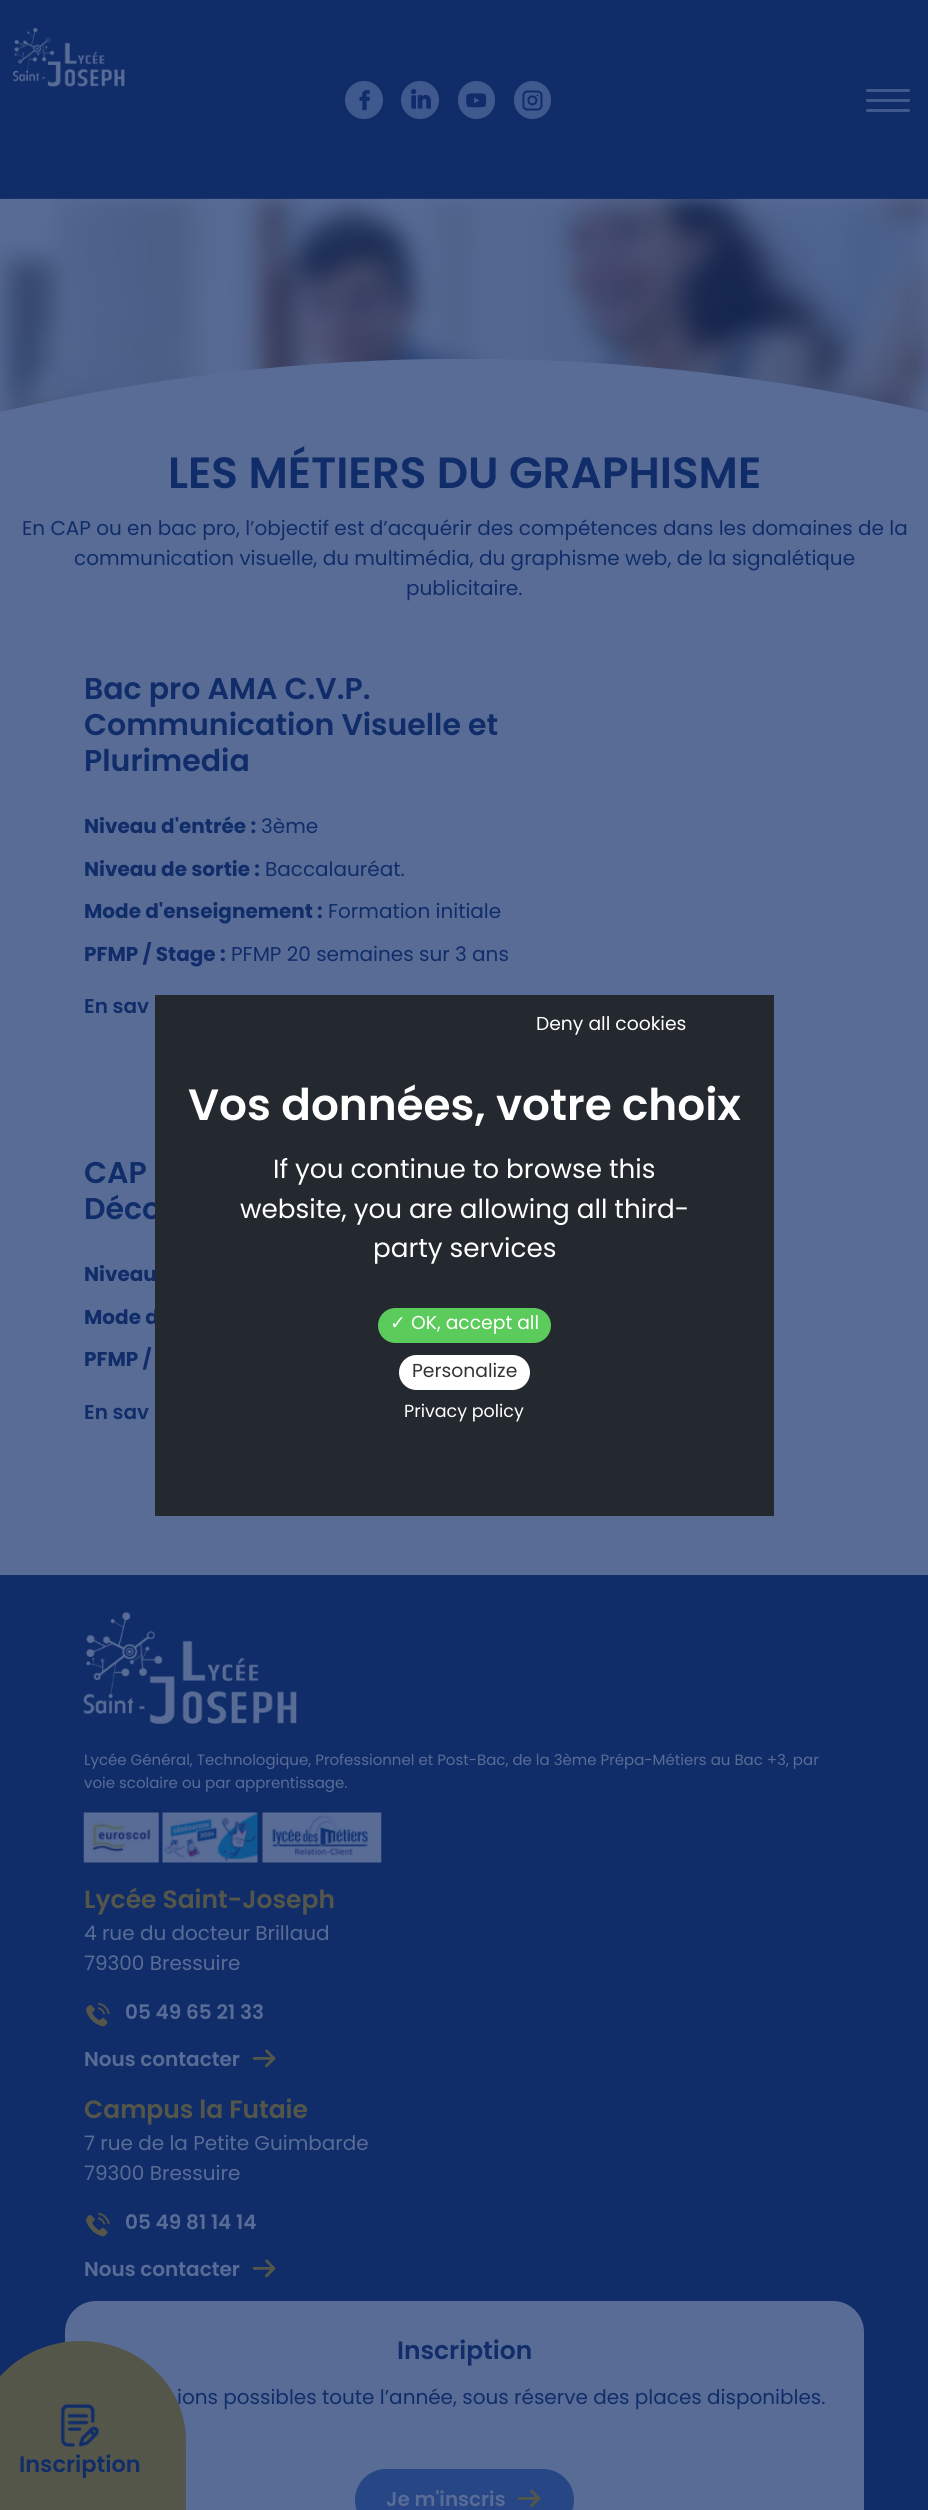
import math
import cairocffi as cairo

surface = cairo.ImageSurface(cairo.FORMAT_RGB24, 928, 2510)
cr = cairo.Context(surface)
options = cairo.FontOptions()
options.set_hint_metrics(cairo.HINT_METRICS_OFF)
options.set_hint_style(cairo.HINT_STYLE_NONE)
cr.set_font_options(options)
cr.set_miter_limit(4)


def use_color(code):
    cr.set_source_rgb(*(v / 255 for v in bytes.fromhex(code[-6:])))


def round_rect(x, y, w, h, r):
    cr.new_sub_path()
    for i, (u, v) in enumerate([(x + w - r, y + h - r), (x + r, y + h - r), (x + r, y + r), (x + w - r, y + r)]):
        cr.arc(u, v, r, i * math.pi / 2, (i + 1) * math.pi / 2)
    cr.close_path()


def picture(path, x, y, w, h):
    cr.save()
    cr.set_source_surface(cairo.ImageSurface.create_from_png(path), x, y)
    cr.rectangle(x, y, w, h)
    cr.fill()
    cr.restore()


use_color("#586c96")
cr.paint()
use_color("#102d69")
cr.rectangle(0, 0, 928, 199)
cr.fill()
picture("img1.png", 0, 198, 928, 214)
cr.save()
cr.rectangle(0, 359, 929, 90)
cr.clip()
use_color("#586c96")
cr.new_path()
cr.move_to(0, 450)
cr.line_to(0, 412)
cr.curve_to(304, 341, 624, 341, 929, 412)
cr.line_to(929, 450)
cr.close_path()
cr.fill()
cr.restore()
cr.select_font_face("Poppins SemiBold")
cr.set_font_size(43.75)
cr.move_to(168, 488)
cr.show_text("LES MÉTIERS DU GRAPHISME")
cr.select_font_face("Poppins")
cr.set_font_size(20)
cr.move_to(22, 535)
cr.show_text("En CAP ou en bac pro, l’objectif est d’acquérir des compétences dans les domaines de la")
cr.move_to(74, 565)
cr.show_text("communication visuelle, du multimédia, du graphisme web, de la signalétique")
cr.move_to(406, 595)
cr.show_text("publicitaire.")
cr.select_font_face("Poppins SemiBold")
cr.set_font_size(30)
cr.move_to(84, 699)
cr.show_text("Bac pro AMA C.V.P.")
cr.move_to(84, 735)
cr.show_text("Communication Visuelle et")
cr.move_to(84, 771)
cr.show_text("Plurimedia")
cr.select_font_face("Poppins", cairo.FONT_SLANT_NORMAL, cairo.FONT_WEIGHT_BOLD)
cr.set_font_size(20)
cr.move_to(84, 833)
cr.show_text("Niveau d'entrée :")
cr.select_font_face("Poppins")
cr.move_to(261, 833)
cr.show_text("3ème")
cr.select_font_face("Poppins", cairo.FONT_SLANT_NORMAL, cairo.FONT_WEIGHT_BOLD)
cr.move_to(84, 876)
cr.show_text("Niveau de sortie :")
cr.select_font_face("Poppins")
cr.move_to(265, 876)
cr.show_text("Baccalauréat.")
cr.select_font_face("Poppins", cairo.FONT_SLANT_NORMAL, cairo.FONT_WEIGHT_BOLD)
cr.move_to(84, 918)
cr.show_text("Mode d'enseignement :")
cr.select_font_face("Poppins")
cr.move_to(328, 918)
cr.show_text("Formation initiale")
cr.select_font_face("Poppins", cairo.FONT_SLANT_NORMAL, cairo.FONT_WEIGHT_BOLD)
cr.move_to(84, 961)
cr.show_text("PFMP / Stage :")
cr.select_font_face("Poppins")
cr.move_to(231, 961)
cr.show_text("PFMP 20 semaines sur 3 ans")
cr.select_font_face("Poppins SemiBold")
cr.move_to(84, 1013)
cr.show_text("En sav")
cr.set_font_size(30)
cr.move_to(84, 1183)
cr.show_text("CAP")
cr.move_to(84, 1219)
cr.show_text("Déco")
cr.select_font_face("Poppins", cairo.FONT_SLANT_NORMAL, cairo.FONT_WEIGHT_BOLD)
cr.set_font_size(20)
cr.move_to(84, 1281)
cr.show_text("Niveau")
cr.move_to(84, 1324)
cr.show_text("Mode d")
cr.move_to(84, 1366)
cr.show_text("PFMP /")
cr.select_font_face("Poppins SemiBold")
cr.move_to(84, 1419)
cr.show_text("En sav")
picture("img2.png", 13, 27, 112, 60)
use_color("#3f598f")
cr.arc(364, 100, 19, 0, 2 * math.pi)
cr.fill()
picture("img3.png", 359, 90, 11, 21)
cr.arc(420, 100, 19, 0, 2 * math.pi)
cr.fill()
picture("img4.png", 411, 89, 20, 20)
round_rect(458, 81, 37, 38, 18.5)
cr.fill()
picture("img5.png", 466, 93, 21, 15)
round_rect(514, 81, 37, 38, 18.5)
cr.fill()
picture("img6.png", 522, 90, 21, 21)
round_rect(866, 89, 44, 3, 1.5)
cr.fill()
round_rect(866, 99, 44, 3, 1.5)
cr.fill()
round_rect(866, 109, 44, 3, 1.5)
cr.fill()
use_color("#102d69")
cr.rectangle(0, 1575, 928, 935)
cr.fill()
use_color("#586c96")
round_rect(65, 2301, 799, 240, 31)
cr.fill()
cr.select_font_face("Poppins")
use_color("#102d69")
cr.move_to(177, 2404)
cr.show_text("ions possibles toute l’année, sous réserve des places disponibles.")
gradient = cairo.LinearGradient(109, 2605, 264, 2278)
gradient.add_color_stop_rgba(1, 0.329, 0.337, 0.29, 1)
gradient.add_color_stop_rgba(1, 0.247, 0.349, 0.561, 1)
cr.set_source(gradient)
cr.new_path()
cr.move_to(81, 2341)
cr.curve_to(139, 2341, 186, 2386, 186, 2441)
cr.line_to(186, 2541)
cr.line_to(-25, 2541)
cr.line_to(-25, 2441)
cr.curve_to(-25, 2386, 22, 2341, 81, 2341)
cr.close_path()
cr.fill()
picture("img7.png", 60, 2403, 39, 44)
cr.select_font_face("Poppins SemiBold")
cr.set_font_size(22.5)
use_color("#102d69")
cr.move_to(19, 2472)
cr.show_text("Inscription")
picture("img8.png", 83, 1612, 214, 112)
cr.select_font_face("Poppins")
cr.set_font_size(15)
use_color("#586c96")
cr.move_to(84, 1765)
cr.show_text("Lycée Général, Technologique, Professionnel et Post-Bac, de la 3ème Prépa-Métiers au Bac +3, par")
cr.move_to(84, 1788)
cr.show_text("voie scolaire ou par apprentissage.")
picture("img9.png", 83, 1812, 76, 51)
picture("img10.png", 162, 1812, 96, 51)
picture("img11.png", 262, 1812, 120, 51)
cr.select_font_face("Poppins SemiBold")
cr.set_font_size(25)
use_color("#54564a")
cr.move_to(84, 1908)
cr.show_text("Lycée Saint-Joseph")
cr.select_font_face("Poppins")
cr.set_font_size(20)
use_color("#586c96")
cr.move_to(84, 1940)
cr.show_text("4 rue du docteur Brillaud")
cr.move_to(84, 1970)
cr.show_text("79300 Bressuire")
picture("img12.png", 86, 2002, 24, 25)
cr.select_font_face("Poppins SemiBold")
cr.move_to(125, 2019)
cr.show_text("05 49 65 21 33")
cr.move_to(84, 2066)
cr.show_text("Nous contacter")
picture("img13.png", 252, 2049, 24, 19)
cr.set_font_size(25)
use_color("#54564a")
cr.move_to(84, 2118)
cr.show_text("Campus la Futaie")
cr.select_font_face("Poppins")
cr.set_font_size(20)
use_color("#586c96")
cr.move_to(84, 2150)
cr.show_text("7 rue de la Petite Guimbarde")
cr.move_to(84, 2180)
cr.show_text("79300 Bressuire")
picture("img12.png", 86, 2212, 24, 25)
cr.select_font_face("Poppins SemiBold")
cr.move_to(125, 2229)
cr.show_text("05 49 81 14 14")
cr.move_to(84, 2276)
cr.show_text("Nous contacter")
picture("img13.png", 252, 2259, 24, 19)
cr.set_font_size(25)
use_color("#102d69")
cr.move_to(397, 2359)
cr.show_text("Inscription")
use_color("#274686")
round_rect(355, 2469, 219, 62, 31)
cr.fill()
cr.set_font_size(20)
use_color("#586c96")
cr.move_to(386, 2506)
cr.show_text("Je m'inscris")
picture("img14.png", 517, 2489, 24, 19)
use_color("#24292f")
cr.rectangle(155, 995, 619, 521)
cr.fill()
cr.select_font_face("Poppins")
cr.set_font_size(18.75)
use_color("#ffffff")
cr.move_to(536, 1030)
cr.show_text("Deny all cookies")
cr.select_font_face("Poppins SemiBold")
cr.set_font_size(43.75)
cr.move_to(188, 1120)
cr.show_text("Vos données, votre choix")
cr.select_font_face("Poppins")
cr.set_font_size(26.25)
cr.move_to(273, 1178)
cr.show_text("If you continue to browse this")
cr.move_to(240, 1218)
cr.show_text("website, you are allowing all third-")
cr.move_to(373, 1257)
cr.show_text("party services")
use_color("#5bcc5b")
round_rect(378, 1308, 173, 35, 17.5)
cr.fill()
cr.select_font_face("DejaVu Sans")
cr.set_font_size(18.75)
use_color("#ffffff")
cr.move_to(390, 1329)
cr.show_text("✓")
cr.select_font_face("Poppins")
cr.move_to(411, 1329)
cr.show_text("OK, accept all")
round_rect(399, 1355, 131, 35, 17.5)
cr.fill()
use_color("#333333")
cr.move_to(412, 1377)
cr.show_text("Personalize")
cr.set_font_size(17.5)
use_color("#ffffff")
cr.move_to(404, 1417)
cr.show_text("Privacy policy")
surface.write_to_png("result.png")
